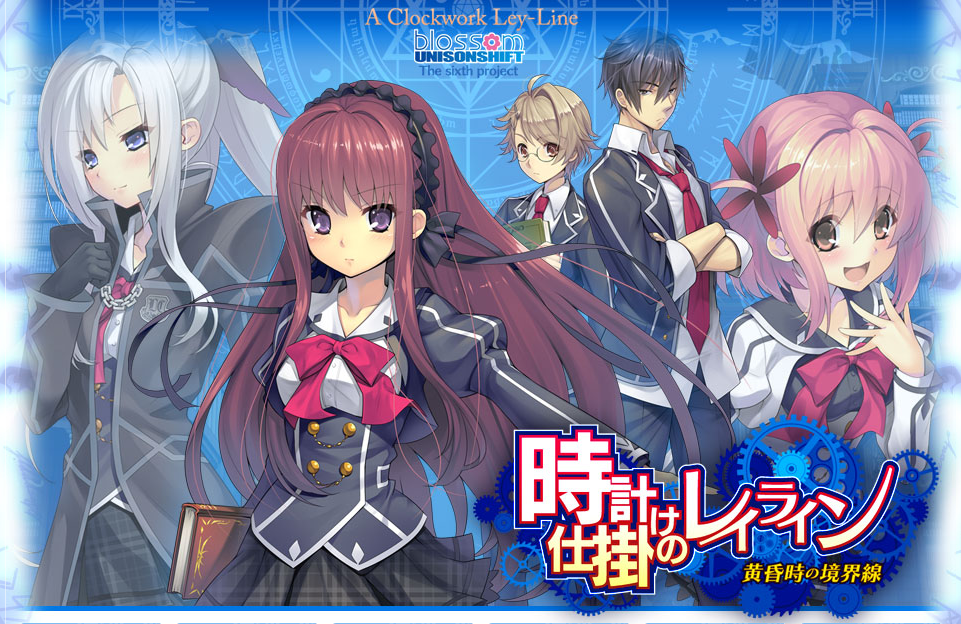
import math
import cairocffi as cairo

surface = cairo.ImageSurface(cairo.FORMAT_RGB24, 961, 624)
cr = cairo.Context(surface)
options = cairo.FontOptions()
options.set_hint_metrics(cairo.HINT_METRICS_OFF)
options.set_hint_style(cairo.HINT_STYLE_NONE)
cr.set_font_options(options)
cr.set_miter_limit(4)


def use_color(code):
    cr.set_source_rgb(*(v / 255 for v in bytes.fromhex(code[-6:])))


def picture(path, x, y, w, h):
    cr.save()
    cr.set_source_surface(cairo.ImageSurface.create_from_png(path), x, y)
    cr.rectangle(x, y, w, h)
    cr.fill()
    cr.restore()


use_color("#ffffff")
cr.paint()
picture("img1.png", 0, 0, 961, 624)
picture("img2.png", 6, 0, 950, 624)
picture("img3.png", 21, 623, 920, 1)
surface.write_to_png("result.png")
